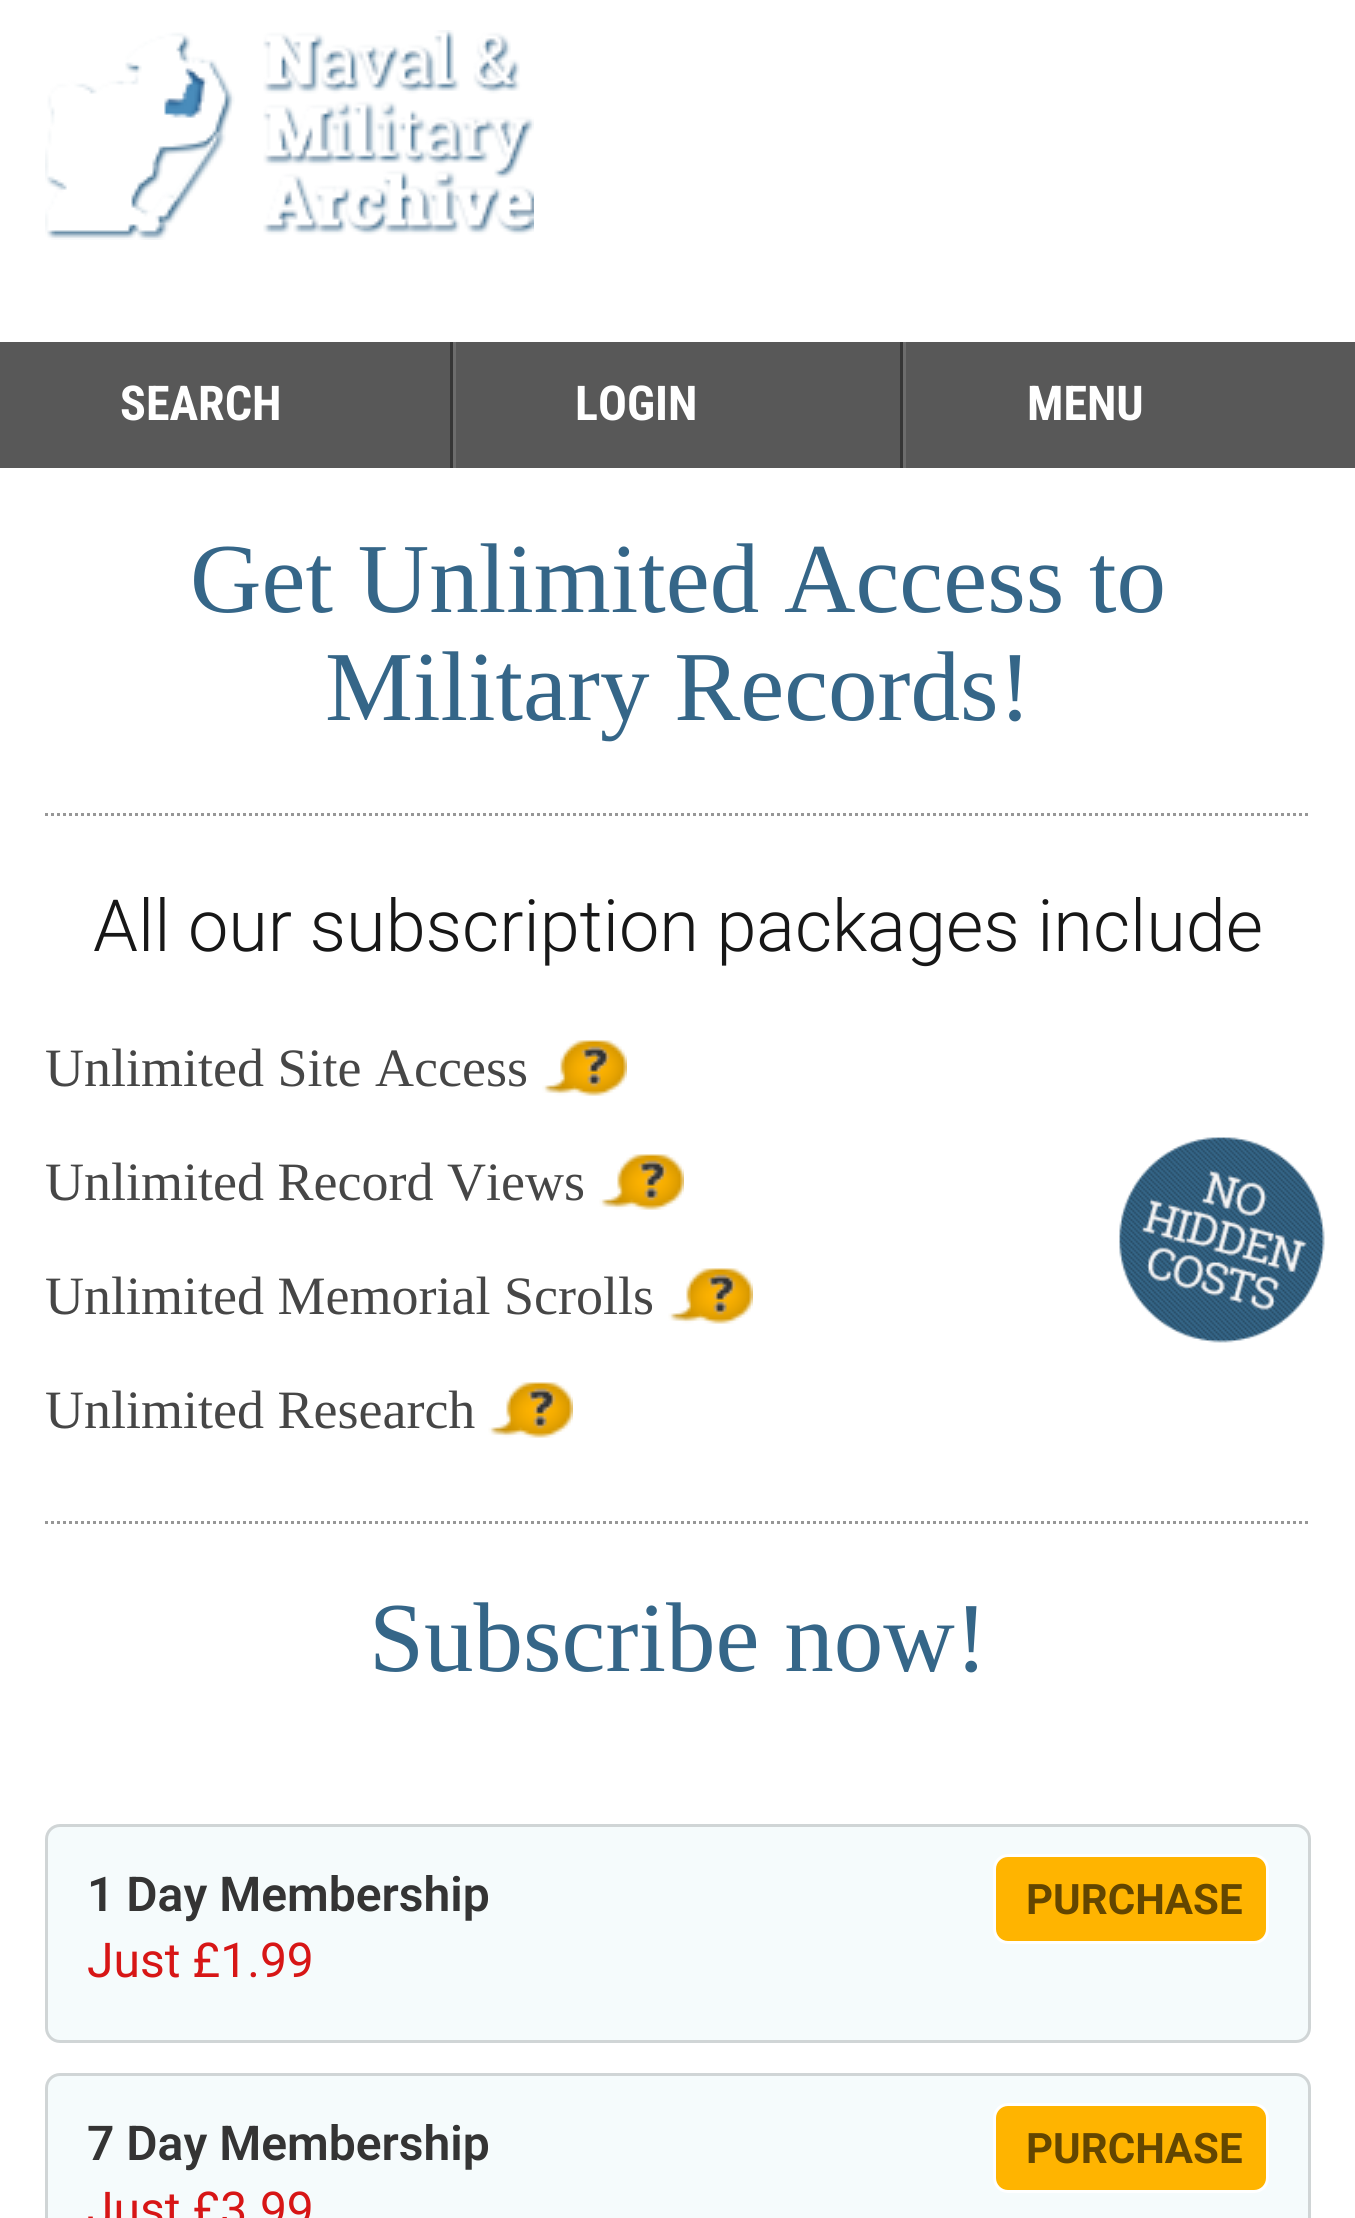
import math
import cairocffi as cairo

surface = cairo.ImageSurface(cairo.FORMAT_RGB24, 1355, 2218)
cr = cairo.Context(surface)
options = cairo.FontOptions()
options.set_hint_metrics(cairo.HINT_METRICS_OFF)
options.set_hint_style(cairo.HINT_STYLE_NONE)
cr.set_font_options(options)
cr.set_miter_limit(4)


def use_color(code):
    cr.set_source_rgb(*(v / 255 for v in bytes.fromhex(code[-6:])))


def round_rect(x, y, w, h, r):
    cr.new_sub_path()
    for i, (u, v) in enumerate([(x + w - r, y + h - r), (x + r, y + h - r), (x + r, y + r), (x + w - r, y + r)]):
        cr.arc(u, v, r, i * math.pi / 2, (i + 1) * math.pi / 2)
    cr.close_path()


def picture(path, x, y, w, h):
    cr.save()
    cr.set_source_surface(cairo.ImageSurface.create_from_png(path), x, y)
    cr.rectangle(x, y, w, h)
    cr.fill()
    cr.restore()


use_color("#ffffff")
cr.paint()
picture("img1.png", 45, 30, 489, 210)
use_color("#585858")
cr.rectangle(0, 342, 1355, 126)
cr.fill()
use_color("#363636")
cr.rectangle(450, 342, 3, 126)
cr.fill()
cr.select_font_face("Roboto Condensed", cairo.FONT_SLANT_NORMAL, cairo.FONT_WEIGHT_BOLD)
cr.set_font_size(48)
use_color("#ffffff")
cr.move_to(120, 420)
cr.show_text("SEARCH")
use_color("#363636")
cr.rectangle(900, 342, 3, 126)
cr.fill()
use_color("#6c6c6c")
cr.rectangle(453, 342, 3, 126)
cr.fill()
use_color("#ffffff")
cr.move_to(575, 420)
cr.show_text("LOGIN")
use_color("#6c6c6c")
cr.rectangle(903, 342, 3, 126)
cr.fill()
use_color("#ffffff")
cr.move_to(1027, 420)
cr.show_text("MENU")
cr.select_font_face("Liberation Serif")
cr.set_font_size(99)
use_color("#356688")
cr.move_to(190, 612)
cr.show_text("Get Unlimited Access to")
cr.move_to(325, 720)
cr.show_text("Military Records!")
cr.new_path()
cr.move_to(45, 814.5)
cr.line_to(1311, 814.5)
use_color("#979797")
cr.set_line_width(3)
cr.set_dash([3, 3])
cr.stroke()
cr.new_path()
cr.move_to(45, 1522.5)
cr.line_to(1311, 1522.5)
cr.stroke()
cr.select_font_face("Roboto Light")
cr.set_font_size(72)
use_color("#171717")
cr.move_to(93, 951)
cr.show_text("All our subscription packages include")
cr.select_font_face("Liberation Serif")
cr.set_font_size(54)
use_color("#464646")
cr.move_to(45, 1086)
cr.show_text("Unlimited Site Access")
picture("img2.png", 542, 1040, 85, 56)
cr.move_to(45, 1200)
cr.show_text("Unlimited Record Views")
picture("img3.png", 599, 1154, 85, 56)
cr.move_to(45, 1314)
cr.show_text("Unlimited Memorial Scrolls")
picture("img2.png", 668, 1268, 85, 56)
cr.move_to(45, 1428)
cr.show_text("Unlimited Research")
picture("img4.png", 488, 1382, 85, 56)
picture("img5.png", 1119, 1137, 206, 206)
cr.set_font_size(99)
use_color("#356688")
cr.move_to(369, 1671)
cr.show_text("Subscribe now!")
use_color("#f5fbfc")
round_rect(46.5, 1825.5, 1263, 216, 13.5)
cr.fill_preserve()
use_color("#d0d5d6")
cr.set_dash([])
cr.stroke()
cr.select_font_face("Roboto SemiBold")
cr.set_font_size(48)
use_color("#343434")
cr.move_to(87, 1911)
cr.show_text("1 Day Membership")
use_color("#ffb400")
round_rect(994.5, 1855.5, 273, 87, 13.5)
cr.fill_preserve()
use_color("#ffffff")
cr.stroke()
cr.select_font_face("Roboto", cairo.FONT_SLANT_NORMAL, cairo.FONT_WEIGHT_BOLD)
cr.set_font_size(42)
use_color("#634600")
cr.move_to(1026, 1914)
cr.show_text("PURCHASE")
cr.select_font_face("Roboto")
cr.set_font_size(48)
use_color("#d71616")
cr.move_to(87, 1977)
cr.show_text("Just £1.99")
use_color("#f5fbfc")
round_rect(46.5, 2074.5, 1263, 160, 13.5)
cr.fill_preserve()
use_color("#d0d5d6")
cr.stroke()
cr.select_font_face("Roboto SemiBold")
use_color("#343434")
cr.move_to(87, 2160)
cr.show_text("7 Day Membership")
use_color("#ffb400")
round_rect(994.5, 2104.5, 273, 87, 13.5)
cr.fill_preserve()
use_color("#ffffff")
cr.stroke()
cr.select_font_face("Roboto", cairo.FONT_SLANT_NORMAL, cairo.FONT_WEIGHT_BOLD)
cr.set_font_size(42)
use_color("#634600")
cr.move_to(1026, 2163)
cr.show_text("PURCHASE")
cr.select_font_face("Roboto")
cr.set_font_size(48)
use_color("#d71616")
cr.move_to(87, 2226)
cr.show_text("Just £3.99")
surface.write_to_png("result.png")
